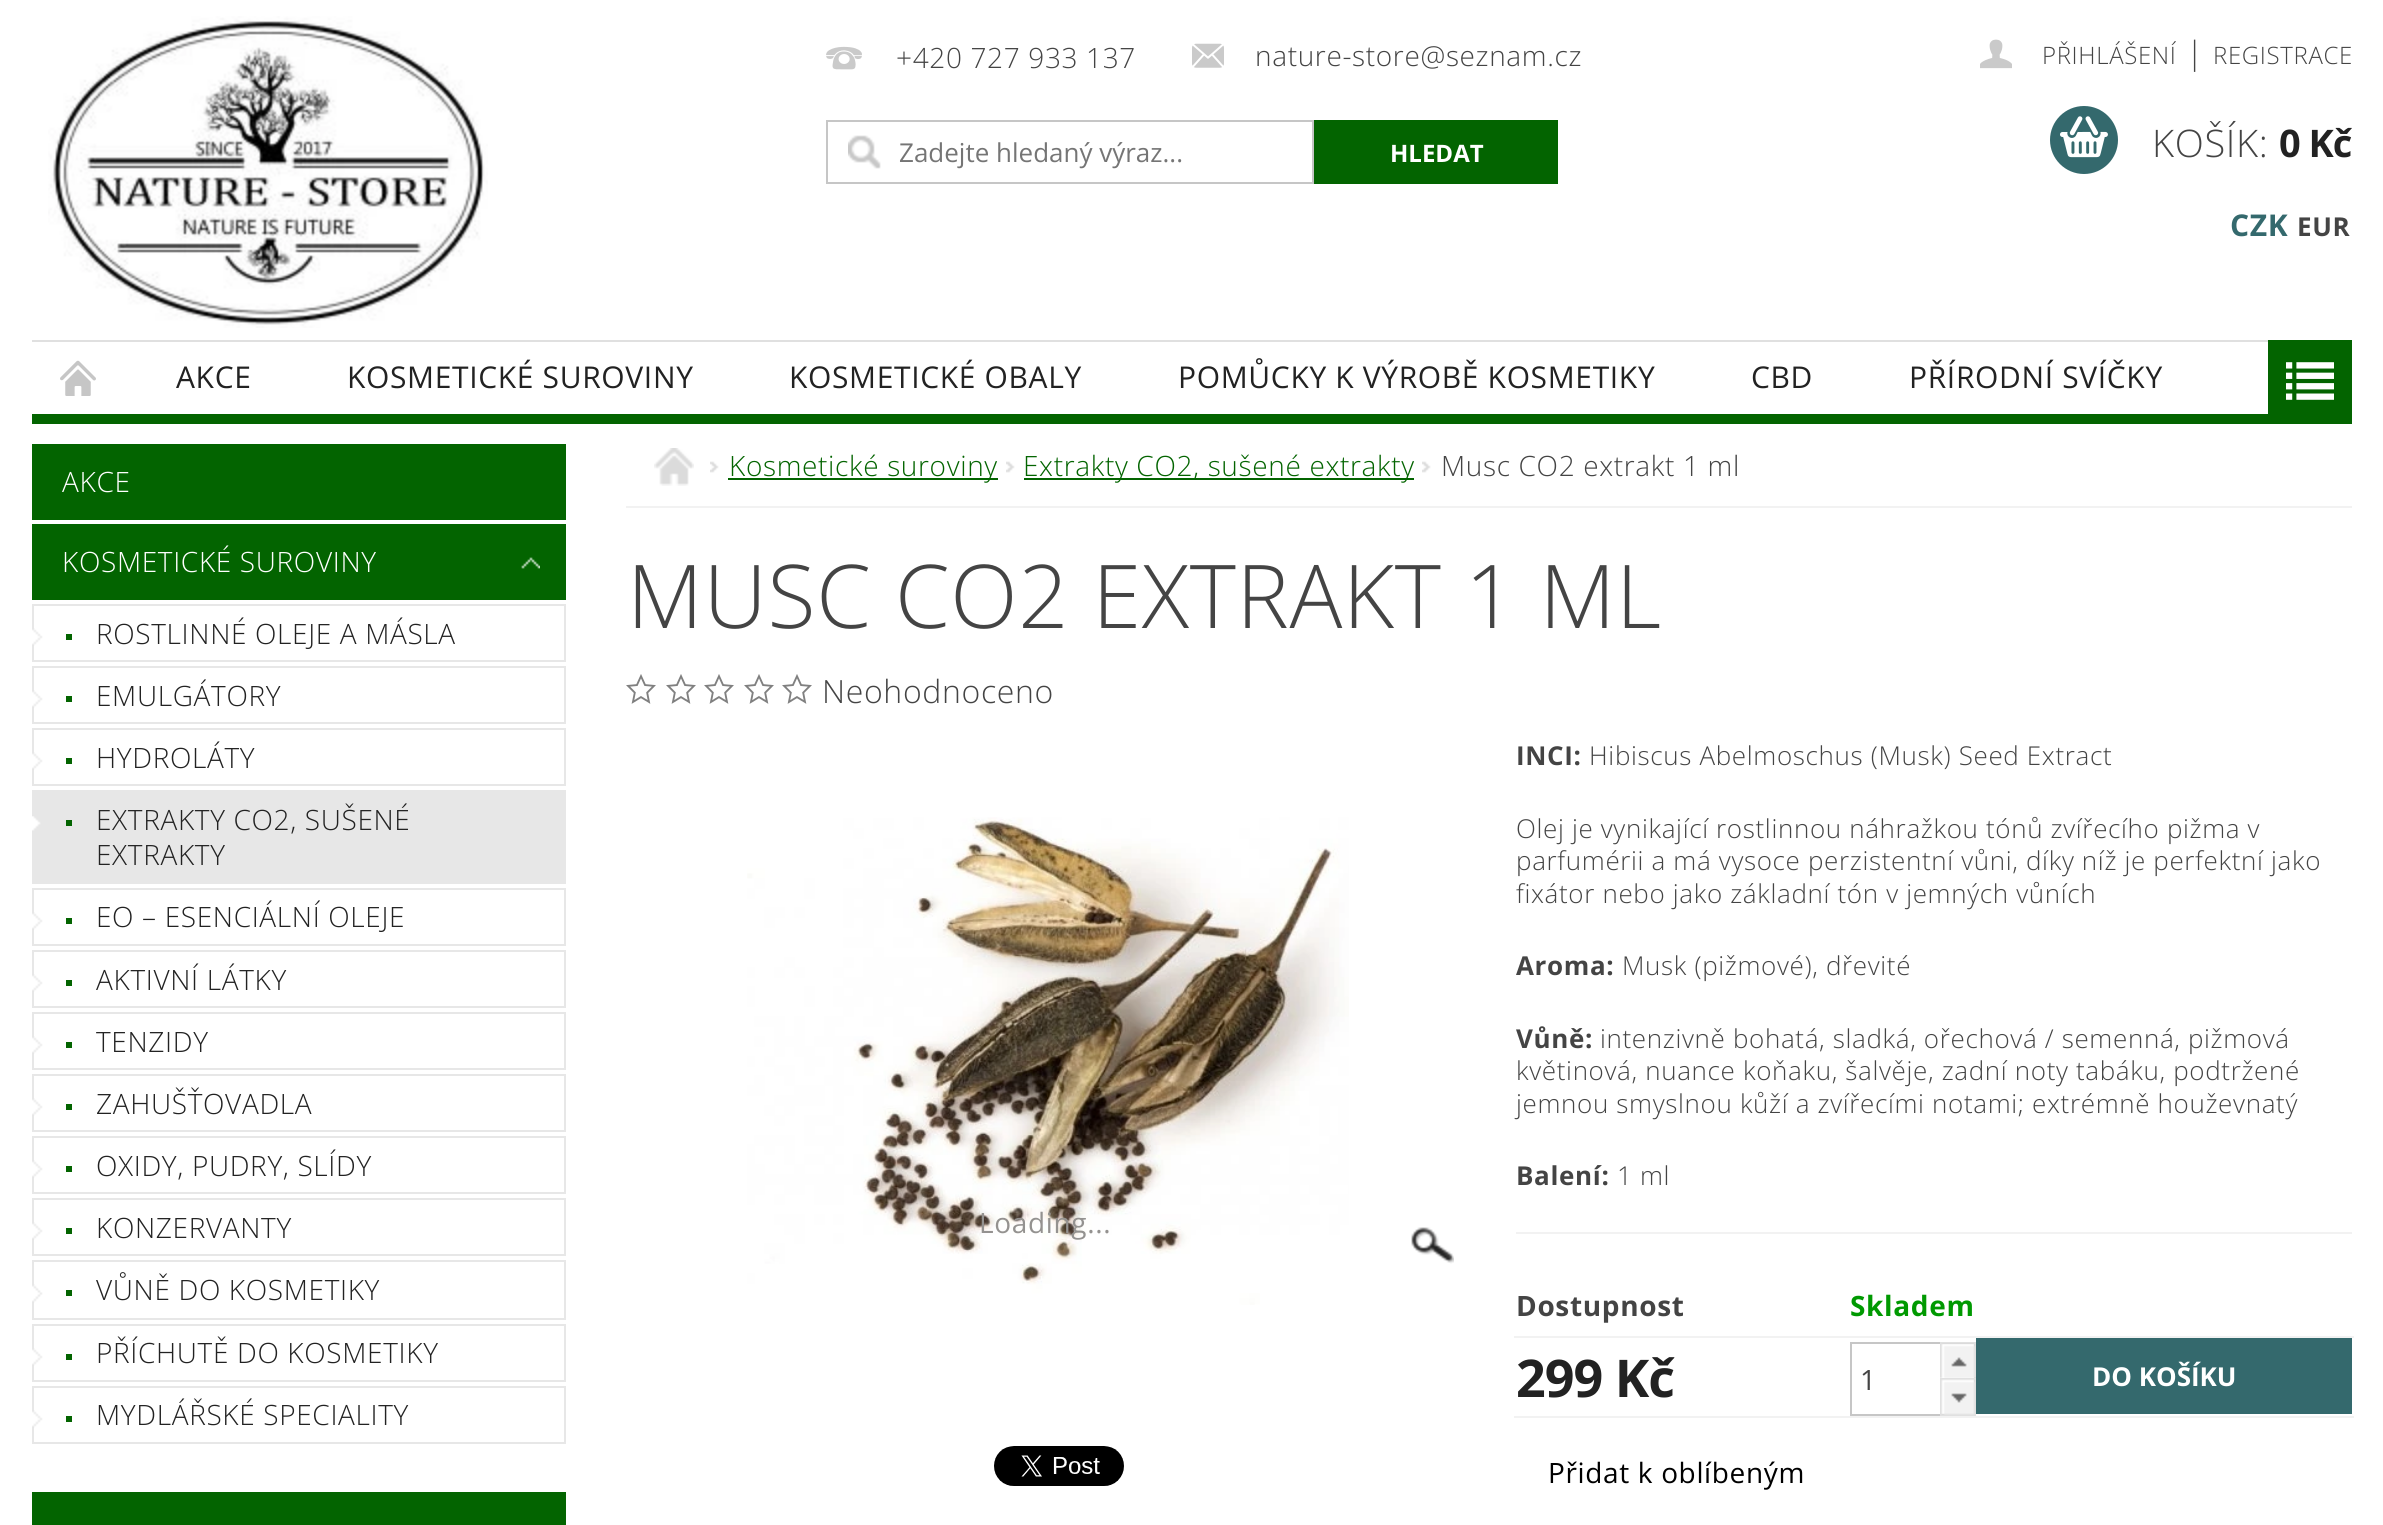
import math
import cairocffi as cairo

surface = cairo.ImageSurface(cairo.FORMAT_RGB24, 2383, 1525)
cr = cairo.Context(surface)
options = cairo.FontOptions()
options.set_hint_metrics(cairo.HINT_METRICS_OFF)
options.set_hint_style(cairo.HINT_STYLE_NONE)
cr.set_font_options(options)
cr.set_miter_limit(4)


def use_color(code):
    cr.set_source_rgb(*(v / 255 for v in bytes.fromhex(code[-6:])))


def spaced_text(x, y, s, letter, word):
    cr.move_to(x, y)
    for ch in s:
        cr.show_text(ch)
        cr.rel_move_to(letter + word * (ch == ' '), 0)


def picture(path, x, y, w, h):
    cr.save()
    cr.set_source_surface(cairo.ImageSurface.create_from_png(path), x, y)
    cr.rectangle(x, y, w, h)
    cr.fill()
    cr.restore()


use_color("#ffffff")
cr.paint()
use_color("#036400")
cr.rectangle(32, 414, 2236, 10)
cr.fill()
picture("img1.png", 48, 16, 440, 312)
picture("img2.png", 826, 46, 36, 24)
cr.select_font_face("Open Sans Light")
cr.set_font_size(28)
use_color("#444444")
spaced_text(896, 68, "+420 727 933 137", 0.65, 0)
picture("img3.png", 1192, 43, 32, 25)
spaced_text(1255, 66, "nature-store@seznam.cz", 0.65, 0)
picture("img4.png", 848, 135, 33, 34)
cr.rectangle(827, 121, 486, 62)
use_color("#c6c6c6")
cr.stroke()
cr.select_font_face("Open Sans")
cr.set_font_size(26)
use_color("#757575")
cr.move_to(899, 162)
cr.show_text("Zadejte hledaný výraz...")
use_color("#036400")
cr.rectangle(1314, 120, 244, 64)
cr.fill()
cr.select_font_face("Open Sans", cairo.FONT_SLANT_NORMAL, cairo.FONT_WEIGHT_BOLD)
cr.set_font_size(24)
use_color("#ffffff")
cr.move_to(1390, 162)
cr.show_text("HLEDAT")
picture("img5.png", 1980, 39, 32, 30)
cr.select_font_face("Open Sans Light")
use_color("#444444")
spaced_text(2042, 64, "PŘIHLÁŠENÍ", 0.65, 0)
cr.set_font_size(32)
spaced_text(2186, 64, "|", 0.65, 0)
cr.set_font_size(24)
spaced_text(2213, 64, "REGISTRACE", 0.65, 0)
use_color("#34696d")
cr.new_path()
cr.arc(2084, 140, 34, 0, 2 * math.pi)
cr.fill()
picture("img6.png", 2060, 116, 48, 42)
cr.set_font_size(38)
use_color("#444444")
spaced_text(2152, 157, "KOŠÍK:", 0.65, 0)
cr.select_font_face("Open Sans", cairo.FONT_SLANT_NORMAL, cairo.FONT_WEIGHT_BOLD)
use_color("#222222")
spaced_text(2279, 157, "0 Kč", -1, 0)
cr.set_font_size(30)
use_color("#34696d")
spaced_text(2230, 236, "CZK", 0.65, 0)
cr.set_font_size(26)
use_color("#444444")
spaced_text(2297, 236, "EUR", 0.65, 0)
use_color("#e0e0e0")
cr.rectangle(32, 340, 2236, 2)
cr.fill()
picture("img7.png", 60, 360, 36, 36)
cr.select_font_face("Open Sans")
cr.set_font_size(30)
use_color("#222222")
spaced_text(176, 388, "AKCE", 0.65, 0)
spaced_text(347, 388, "KOSMETICKÉ SUROVINY", 0.65, 0)
spaced_text(789, 388, "KOSMETICKÉ OBALY", 0.65, 0)
spaced_text(1178, 388, "POMŮCKY K VÝROBĚ KOSMETIKY", 0.65, 0)
spaced_text(1751, 388, "CBD", 0.65, 0)
spaced_text(1909, 388, "PŘÍRODNÍ SVÍČKY", 0.65, 0)
use_color("#036400")
cr.rectangle(2268, 340, 84, 84)
cr.fill()
picture("img8.png", 2286, 362, 48, 38)
cr.rectangle(32, 444, 534, 76)
cr.fill()
cr.select_font_face("Open Sans Light")
cr.set_font_size(28)
use_color("#ffffff")
spaced_text(62, 492, "AKCE", 0.65, 0)
use_color("#036400")
cr.rectangle(32, 524, 534, 76)
cr.fill()
picture("img9.png", 521, 557, 19, 12)
use_color("#ffffff")
spaced_text(62, 572, "KOSMETICKÉ SUROVINY", 0.65, 0)
cr.rectangle(33, 605, 532, 56)
use_color("#e7e7e7")
cr.stroke()
picture("img10.png", 32, 628, 11, 18)
use_color("#036400")
cr.rectangle(66, 634, 6, 6)
cr.fill()
use_color("#222222")
spaced_text(96, 644, "ROSTLINNÉ OLEJE A MÁSLA", 0.65, 0)
cr.rectangle(33, 667, 532, 56)
use_color("#e7e7e7")
cr.stroke()
picture("img10.png", 32, 690, 11, 18)
use_color("#036400")
cr.rectangle(66, 696, 6, 6)
cr.fill()
use_color("#222222")
spaced_text(96, 706, "EMULGÁTORY", 0.65, 0)
cr.rectangle(33, 729, 532, 56)
use_color("#e7e7e7")
cr.stroke()
picture("img10.png", 32, 752, 11, 18)
use_color("#036400")
cr.rectangle(66, 758, 6, 6)
cr.fill()
use_color("#222222")
spaced_text(96, 768, "HYDROLÁTY", 0.65, 0)
cr.rectangle(33, 791, 532, 92)
use_color("#e7e7e7")
cr.stroke()
cr.rectangle(34, 792, 530, 90)
cr.fill()
picture("img11.png", 32, 816, 9, 15)
use_color("#036400")
cr.rectangle(66, 820, 6, 6)
cr.fill()
use_color("#222222")
spaced_text(96, 830, "EXTRAKTY CO2, SUŠENÉ", 0.65, 0)
spaced_text(96, 865, "EXTRAKTY", 0.65, 0)
cr.rectangle(33, 889, 532, 56)
use_color("#e7e7e7")
cr.stroke()
picture("img10.png", 32, 912, 11, 18)
use_color("#036400")
cr.rectangle(66, 918, 6, 6)
cr.fill()
use_color("#222222")
spaced_text(96, 927, "EO – ESENCIÁLNÍ OLEJE", 0.65, 0)
cr.rectangle(33, 951, 532, 56)
use_color("#e7e7e7")
cr.stroke()
picture("img10.png", 32, 974, 11, 18)
use_color("#036400")
cr.rectangle(66, 980, 6, 6)
cr.fill()
use_color("#222222")
spaced_text(96, 990, "AKTIVNÍ LÁTKY", 0.65, 0)
cr.rectangle(33, 1013, 532, 56)
use_color("#e7e7e7")
cr.stroke()
picture("img10.png", 32, 1036, 11, 18)
use_color("#036400")
cr.rectangle(66, 1042, 6, 6)
cr.fill()
use_color("#222222")
spaced_text(96, 1052, "TENZIDY", 0.65, 0)
cr.rectangle(33, 1075, 532, 56)
use_color("#e7e7e7")
cr.stroke()
picture("img10.png", 32, 1098, 11, 18)
use_color("#036400")
cr.rectangle(66, 1104, 6, 6)
cr.fill()
use_color("#222222")
spaced_text(96, 1114, "ZAHUŠŤOVADLA", 0.65, 0)
cr.rectangle(33, 1137, 532, 56)
use_color("#e7e7e7")
cr.stroke()
picture("img10.png", 32, 1160, 11, 18)
use_color("#036400")
cr.rectangle(66, 1166, 6, 6)
cr.fill()
use_color("#222222")
spaced_text(96, 1176, "OXIDY, PUDRY, SLÍDY", 0.65, 0)
cr.rectangle(33, 1199, 532, 56)
use_color("#e7e7e7")
cr.stroke()
picture("img10.png", 32, 1222, 11, 18)
use_color("#036400")
cr.rectangle(66, 1228, 6, 6)
cr.fill()
use_color("#222222")
spaced_text(96, 1238, "KONZERVANTY", 0.65, 0)
cr.rectangle(33, 1261, 532, 58)
use_color("#e7e7e7")
cr.stroke()
picture("img12.png", 32, 1284, 11, 19)
use_color("#036400")
cr.rectangle(66, 1290, 6, 6)
cr.fill()
use_color("#222222")
spaced_text(96, 1300, "VŮNĚ DO KOSMETIKY", 0.65, 0)
cr.rectangle(33, 1325, 532, 56)
use_color("#e7e7e7")
cr.stroke()
picture("img10.png", 32, 1348, 11, 18)
use_color("#036400")
cr.rectangle(66, 1354, 6, 6)
cr.fill()
use_color("#222222")
spaced_text(96, 1363, "PŘÍCHUTĚ DO KOSMETIKY", 0.65, 0)
cr.rectangle(33, 1387, 532, 56)
use_color("#e7e7e7")
cr.stroke()
picture("img10.png", 32, 1410, 11, 18)
use_color("#036400")
cr.rectangle(66, 1416, 6, 6)
cr.fill()
use_color("#222222")
spaced_text(96, 1425, "MYDLÁŘSKÉ SPECIALITY", 0.65, 0)
use_color("#036400")
cr.rectangle(32, 1492, 534, 33)
cr.fill()
use_color("#f2f2f2")
cr.rectangle(626, 506, 1726, 2)
cr.fill()
picture("img13.png", 654, 448, 40, 38)
picture("img14.png", 710, 461, 9, 12)
use_color("#036400")
cr.rectangle(728, 478, 270, 2)
cr.fill()
spaced_text(729, 476, "Kosmetické suroviny", 0.65, 0)
picture("img14.png", 1006, 461, 9, 12)
cr.rectangle(1024, 478, 390, 2)
cr.fill()
spaced_text(1023, 476, "Extrakty CO2, sušené extrakty", 0.65, 0)
picture("img14.png", 1422, 461, 9, 12)
use_color("#444444")
spaced_text(1441, 476, "Musc CO2 extrakt 1 ml", 0.65, 0)
cr.set_font_size(88)
spaced_text(627, 628, "MUSC CO2 EXTRAKT 1 ML", 0.65, 0)
picture("img15.png", 626, 674, 30, 30)
picture("img15.png", 666, 674, 30, 30)
picture("img15.png", 704, 674, 30, 30)
picture("img15.png", 744, 674, 30, 30)
picture("img15.png", 782, 674, 30, 30)
cr.set_font_size(32)
spaced_text(822, 703, "Neohodnoceno", 0.65, 0)
picture("img16.png", 747, 817, 602, 488)
cr.select_font_face("Open Sans")
cr.set_font_size(28)
use_color("#949290")
spaced_text(979, 1233, "Loading...", 0.65, 0)
picture("img17.png", 1411, 1227, 43, 37)
picture("img18.png", 994, 1446, 130, 40)
use_color("#f2f2f2")
cr.rectangle(1516, 1232, 836, 2)
cr.fill()
cr.select_font_face("Open Sans", cairo.FONT_SLANT_NORMAL, cairo.FONT_WEIGHT_BOLD)
cr.set_font_size(26)
use_color("#444444")
spaced_text(1516, 765, "INCI:", 0.65, 0)
cr.select_font_face("Open Sans Light")
spaced_text(1589, 765, "Hibiscus Abelmoschus (Musk) Seed Extract", 0.65, 0)
spaced_text(1516, 838, "Olej je vynikající rostlinnou náhražkou tónů zvířecího pižma v", 0.65, 0)
spaced_text(1516, 870, "parfumérii a má vysoce perzistentní vůni, díky níž je perfektní jako", 0.65, 0)
spaced_text(1516, 903, "fixátor nebo jako základní tón v jemných vůních", 0.65, 0)
cr.select_font_face("Open Sans", cairo.FONT_SLANT_NORMAL, cairo.FONT_WEIGHT_BOLD)
spaced_text(1516, 975, "Aroma:", 0.65, 0)
cr.select_font_face("Open Sans Light")
spaced_text(1622, 975, "Musk (pižmové), dřevité", 0.65, 0)
cr.select_font_face("Open Sans", cairo.FONT_SLANT_NORMAL, cairo.FONT_WEIGHT_BOLD)
spaced_text(1516, 1048, "Vůně:", 0.65, 0)
cr.select_font_face("Open Sans Light")
spaced_text(1600, 1048, "intenzivně bohatá, sladká, ořechová / semenná, pižmová", 0.65, 0)
spaced_text(1516, 1080, "květinová, nuance koňaku, šalvěje, zadní noty tabáku, podtržené", 0.65, 0)
spaced_text(1516, 1113, "jemnou smyslnou kůží a zvířecími notami; extrémně houževnatý", 0.65, 0)
cr.select_font_face("Open Sans", cairo.FONT_SLANT_NORMAL, cairo.FONT_WEIGHT_BOLD)
spaced_text(1516, 1185, "Balení:", 0.65, 0)
cr.select_font_face("Open Sans Light")
spaced_text(1617, 1185, "1 ml", 0.65, 0)
use_color("#f2f2f2")
cr.rectangle(1514, 1336, 840, 2)
cr.fill()
cr.select_font_face("Open Sans", cairo.FONT_SLANT_NORMAL, cairo.FONT_WEIGHT_BOLD)
cr.set_font_size(28)
use_color("#444444")
spaced_text(1516, 1316, "Dostupnost", 0.65, 0)
use_color("#009901")
spaced_text(1850, 1316, "Skladem", 0.65, 0)
use_color("#f2f2f2")
cr.rectangle(1514, 1416, 840, 2)
cr.fill()
cr.set_font_size(52)
use_color("#222222")
spaced_text(1516, 1397, "299 Kč", -1, 0)
cr.rectangle(1851, 1343, 124, 72)
use_color("#c6c6c6")
cr.stroke()
picture("img19.png", 1940, 1342, 36, 36)
cr.select_font_face("Open Sans")
cr.set_font_size(28)
use_color("#444444")
cr.move_to(1860, 1390)
cr.show_text("1")
picture("img20.png", 1940, 1378, 36, 38)
use_color("#34696d")
cr.rectangle(1976, 1338, 376, 76)
cr.fill()
cr.select_font_face("Open Sans", cairo.FONT_SLANT_NORMAL, cairo.FONT_WEIGHT_BOLD)
cr.set_font_size(26)
use_color("#ffffff")
cr.move_to(2092, 1386)
cr.show_text("DO KOŠÍKU")
cr.select_font_face("Open Sans")
cr.set_font_size(28)
use_color("#000000")
spaced_text(1548, 1483, "Přidat k oblíbeným", 0.65, 0)
surface.write_to_png("result.png")
